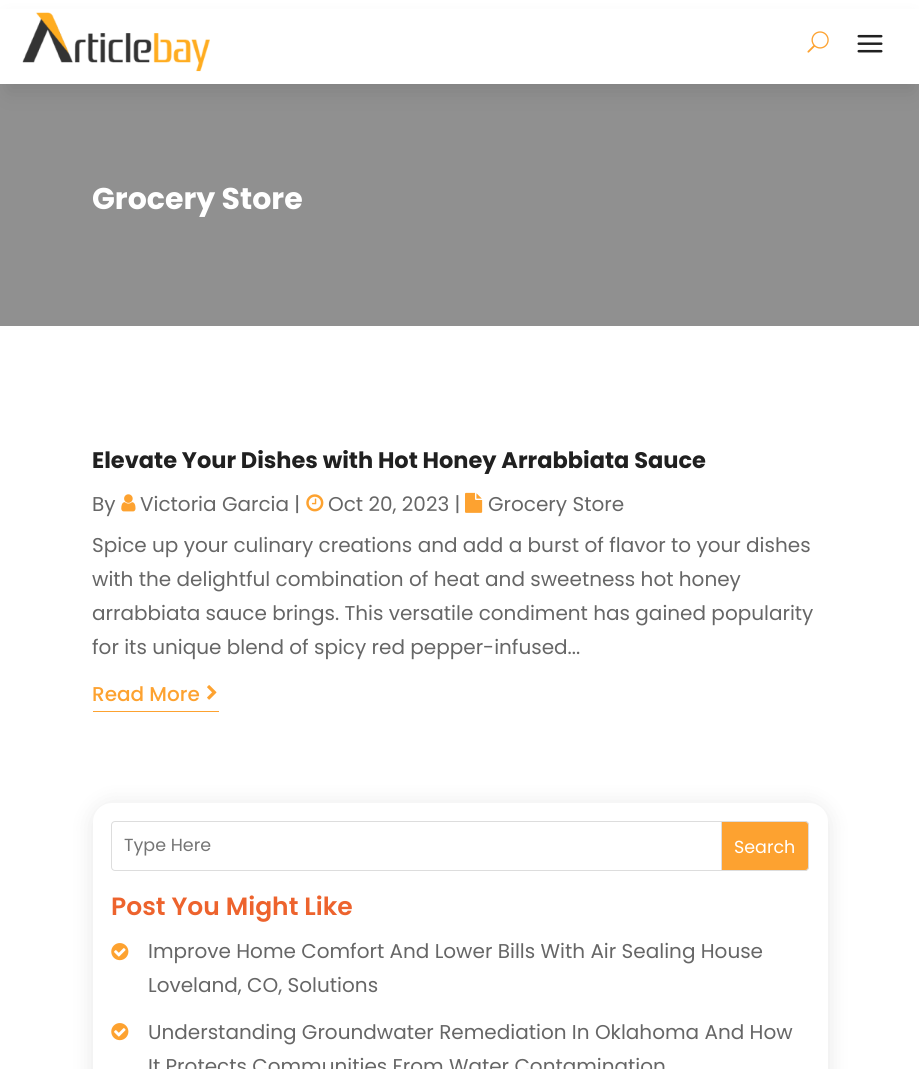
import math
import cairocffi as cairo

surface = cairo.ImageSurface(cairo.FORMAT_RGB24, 919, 1069)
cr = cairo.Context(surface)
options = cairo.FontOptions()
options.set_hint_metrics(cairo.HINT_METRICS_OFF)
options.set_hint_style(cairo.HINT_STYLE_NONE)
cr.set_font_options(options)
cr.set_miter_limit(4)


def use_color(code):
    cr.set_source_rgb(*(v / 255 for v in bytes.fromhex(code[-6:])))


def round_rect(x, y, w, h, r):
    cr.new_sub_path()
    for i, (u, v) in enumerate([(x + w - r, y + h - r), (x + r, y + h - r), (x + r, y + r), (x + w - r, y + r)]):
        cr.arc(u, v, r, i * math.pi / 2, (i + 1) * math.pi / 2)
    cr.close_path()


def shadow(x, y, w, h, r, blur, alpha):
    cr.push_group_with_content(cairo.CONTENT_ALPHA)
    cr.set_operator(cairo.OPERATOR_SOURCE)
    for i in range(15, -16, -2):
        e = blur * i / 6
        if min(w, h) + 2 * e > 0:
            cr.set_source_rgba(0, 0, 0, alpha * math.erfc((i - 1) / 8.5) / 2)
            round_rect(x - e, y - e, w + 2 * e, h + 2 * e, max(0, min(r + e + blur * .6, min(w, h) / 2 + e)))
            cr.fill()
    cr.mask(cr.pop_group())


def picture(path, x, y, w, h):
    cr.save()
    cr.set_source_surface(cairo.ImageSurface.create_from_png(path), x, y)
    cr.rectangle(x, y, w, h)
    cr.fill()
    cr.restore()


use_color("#ffffff")
cr.paint()
use_color("#909090")
cr.rectangle(0, 84, 919, 242)
cr.fill()
use_color("#000000")
shadow(8, 23, 905, 68, 0, 11, 0.1)
use_color("#ffffff")
cr.rectangle(0, 9, 919, 75)
cr.fill()
picture("img1.png", 22, 12, 188, 60)
picture("img2.png", 807, 31, 22, 22)
picture("img3.png", 857, 34, 26, 19)
cr.select_font_face("Poppins", cairo.FONT_SLANT_NORMAL, cairo.FONT_WEIGHT_BOLD)
cr.set_font_size(30)
cr.move_to(92, 209)
cr.show_text("Grocery Store")
cr.set_font_size(22.5)
use_color("#202020")
cr.move_to(92, 468)
cr.show_text("Elevate Your Dishes with Hot Honey Arrabbiata Sauce")
cr.select_font_face("Poppins")
cr.set_font_size(20)
use_color("#666666")
cr.move_to(92, 511)
cr.show_text("By")
picture("img4.png", 121, 494, 15, 18)
cr.move_to(140, 511)
cr.show_text("Victoria Garcia |")
picture("img5.png", 306, 494, 18, 18)
cr.move_to(328, 511)
cr.show_text("Oct 20, 2023 |")
picture("img6.png", 465, 492, 18, 21)
cr.move_to(488, 511)
cr.show_text("Grocery Store")
cr.move_to(92, 552)
cr.show_text("Spice up your culinary creations and add a burst of flavor to your dishes")
cr.move_to(92, 586)
cr.show_text("with the delightful combination of heat and sweetness hot honey")
cr.move_to(92, 620)
cr.show_text("arrabbiata sauce brings. This versatile condiment has gained popularity")
cr.move_to(92, 654)
cr.show_text("for its unique blend of spicy red pepper-infused...")
use_color("#fda230")
cr.rectangle(93, 711, 126, 1)
cr.fill()
cr.select_font_face("Poppins Medium")
cr.move_to(92, 701)
cr.show_text("Read More")
picture("img7.png", 207, 685, 10, 15)
use_color("#000000")
shadow(93, 805, 735, 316, 19, 11, 0.1)
use_color("#ffffff")
round_rect(93, 803, 735, 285, 19)
cr.fill()
round_rect(111.5, 821.5, 697, 49, 3.5)
use_color("#dddddd")
cr.set_line_width(1)
cr.stroke()
cr.select_font_face("Poppins")
cr.set_font_size(17.5)
use_color("#757575")
cr.move_to(124, 851)
cr.show_text("Type Here")
use_color("#fda230")
cr.new_path()
cr.move_to(721.5, 821.5)
cr.line_to(805, 821.5)
cr.curve_to(807, 821.5, 808.5, 823, 808.5, 825)
cr.line_to(808.5, 867)
cr.curve_to(808.5, 869, 807, 870.5, 805, 870.5)
cr.line_to(721.5, 870.5)
cr.close_path()
cr.fill_preserve()
use_color("#dddddd")
cr.stroke()
use_color("#ffffff")
cr.move_to(734, 853)
cr.show_text("Search")
cr.select_font_face("Poppins SemiBold")
cr.set_font_size(25)
use_color("#ed632d")
cr.move_to(111, 915)
cr.show_text("Post You Might Like")
picture("img8.png", 111, 943, 18, 18)
cr.select_font_face("Poppins")
cr.set_font_size(20)
use_color("#666666")
cr.move_to(148, 958)
cr.show_text("Improve Home Comfort And Lower Bills With Air Sealing House")
cr.move_to(148, 992)
cr.show_text("Loveland, CO, Solutions")
picture("img8.png", 111, 1023, 18, 18)
cr.move_to(148, 1039)
cr.show_text("Understanding Groundwater Remediation In Oklahoma And How")
cr.move_to(148, 1073)
cr.show_text("It Protects Communities From Water Contamination")
surface.write_to_png("result.png")
